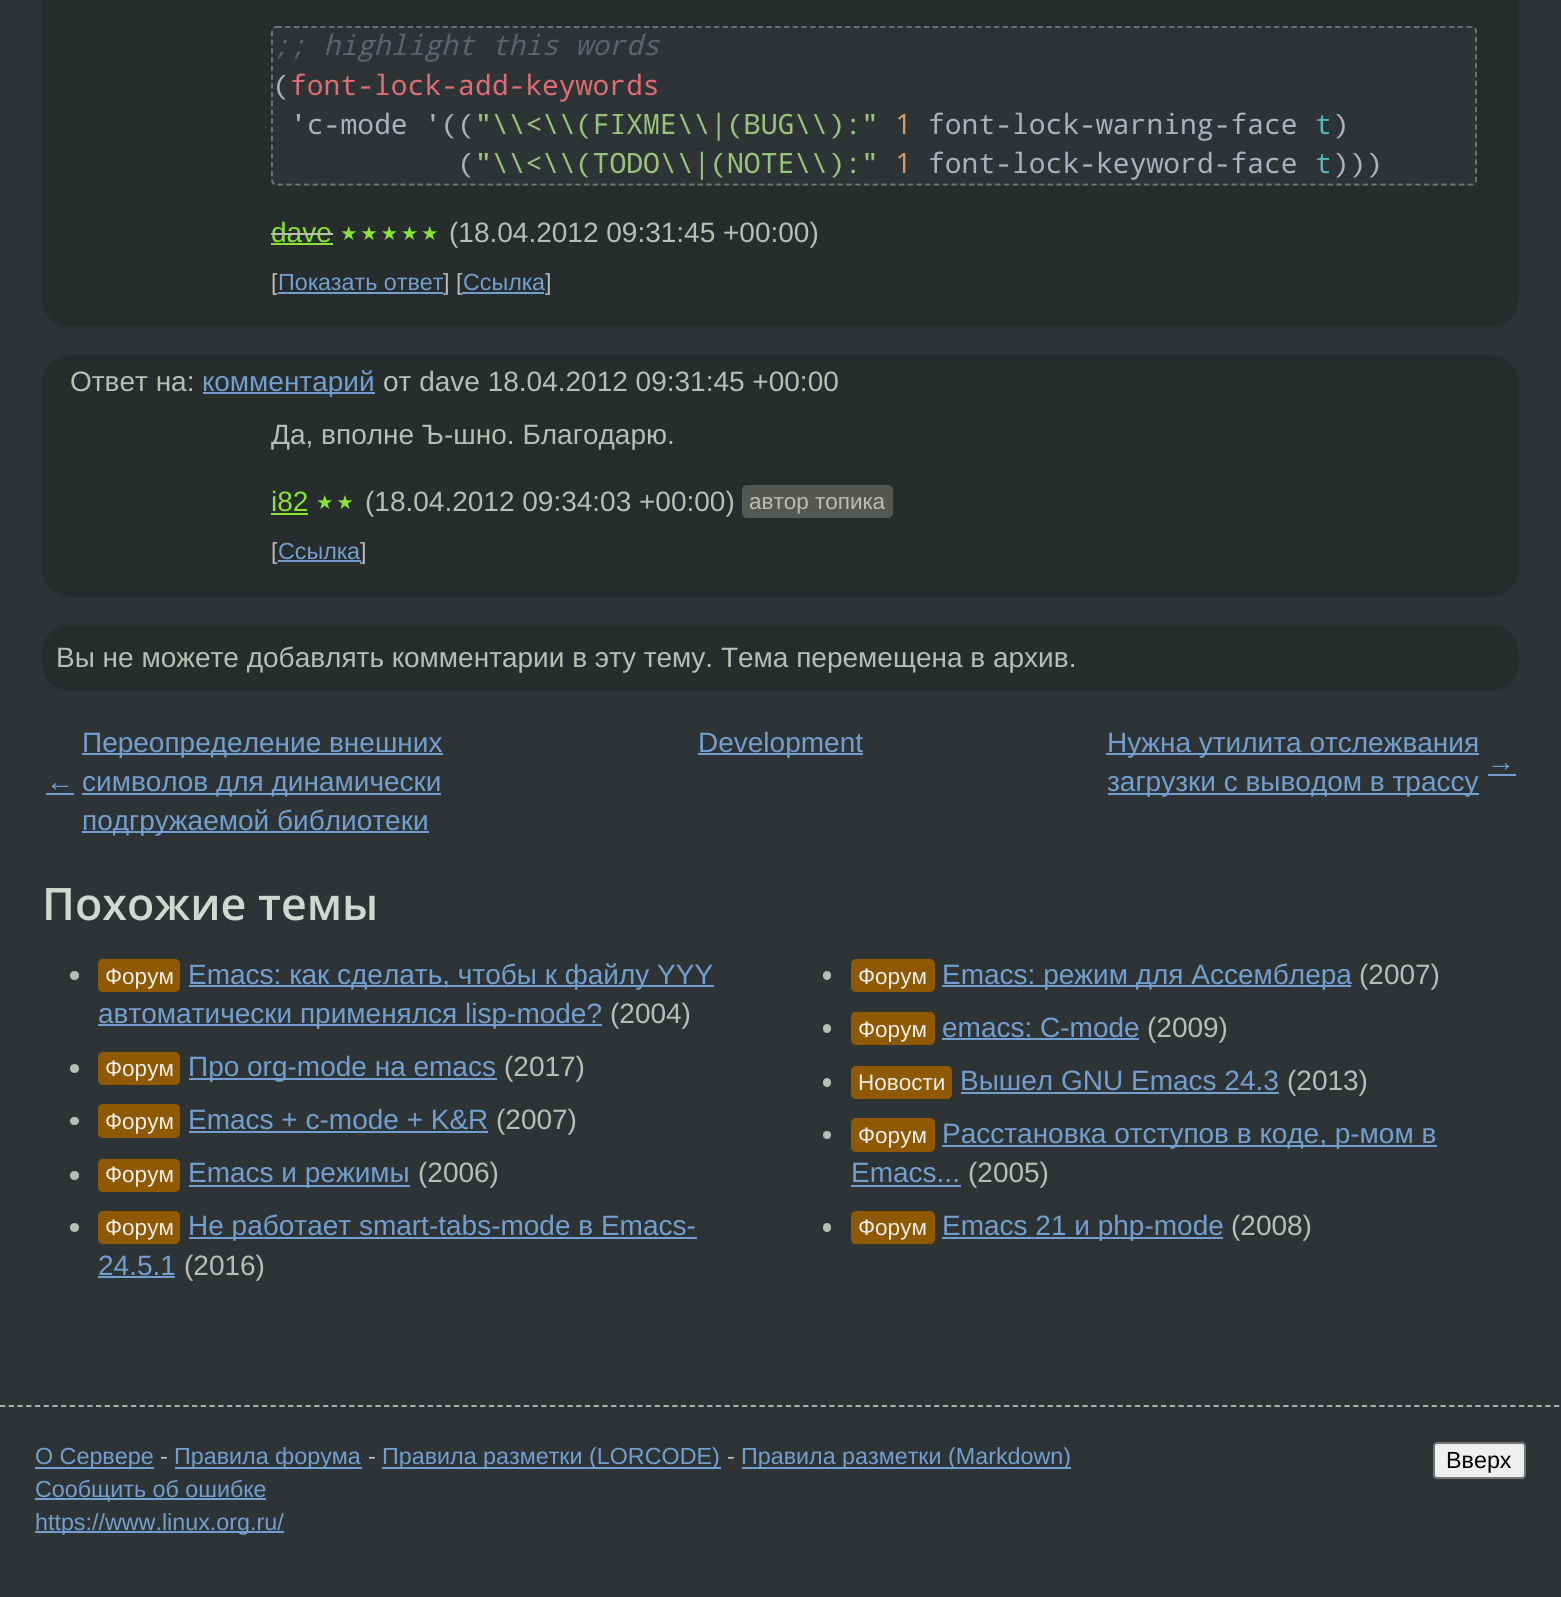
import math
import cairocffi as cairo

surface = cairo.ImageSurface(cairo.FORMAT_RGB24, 1561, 1597)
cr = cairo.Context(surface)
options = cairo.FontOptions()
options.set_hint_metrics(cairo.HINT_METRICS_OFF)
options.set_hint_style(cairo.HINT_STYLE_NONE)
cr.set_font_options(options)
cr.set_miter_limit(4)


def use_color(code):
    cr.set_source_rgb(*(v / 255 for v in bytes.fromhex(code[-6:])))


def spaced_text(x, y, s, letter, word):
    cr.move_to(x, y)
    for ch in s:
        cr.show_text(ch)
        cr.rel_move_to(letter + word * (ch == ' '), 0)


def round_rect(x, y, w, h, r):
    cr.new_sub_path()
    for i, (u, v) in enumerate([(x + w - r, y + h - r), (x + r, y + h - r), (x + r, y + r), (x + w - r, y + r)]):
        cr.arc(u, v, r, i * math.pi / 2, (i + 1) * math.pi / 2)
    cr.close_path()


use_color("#2e3436")
cr.paint()
use_color("#272c2d")
round_rect(42, -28, 1477, 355, 28)
cr.fill()
use_color("#2e3436")
round_rect(271, 26, 1206, 160, 5)
cr.fill()
cr.new_path()
cr.move_to(276.5, 27)
cr.line_to(1472, 27)
cr.curve_to(1474, 27, 1476, 29, 1476, 31.5)
cr.line_to(1476, 180)
cr.curve_to(1476, 182.5, 1474, 184.5, 1472, 184.5)
cr.line_to(276.5, 184.5)
cr.curve_to(274, 184.5, 272, 182.5, 272, 180)
cr.line_to(272, 31.5)
cr.curve_to(272, 29, 274, 27, 276.5, 27)
cr.close_path()
use_color("#777777")
cr.set_line_width(1.8)
cr.set_dash([5.25, 3.5])
cr.stroke()
cr.select_font_face("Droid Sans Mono", cairo.FONT_SLANT_ITALIC)
cr.set_font_size(28)
use_color("#5c6370")
cr.move_to(273, 55)
cr.show_text(";; highlight this words")
cr.select_font_face("Droid Sans Mono")
use_color("#abb2bf")
cr.move_to(273, 95)
cr.show_text("(")
use_color("#e06c75")
cr.move_to(290, 95)
cr.show_text("font-lock-add-keywords")
use_color("#abb2bf")
cr.move_to(290, 134)
cr.show_text("'c-mode '((")
use_color("#98c379")
cr.move_to(475, 134)
cr.show_text("\"\\\\<\\\\(FIXME\\\\|(BUG\\\\):\"")
use_color("#d19a66")
cr.move_to(895, 134)
cr.show_text("1")
use_color("#abb2bf")
cr.move_to(928, 134)
cr.show_text("font-lock-warning-face")
use_color("#56b6c2")
cr.move_to(1315, 134)
cr.show_text("t")
use_color("#abb2bf")
cr.move_to(1332, 134)
cr.show_text(")")
cr.move_to(458, 173)
cr.show_text("(")
use_color("#98c379")
cr.move_to(475, 173)
cr.show_text("\"\\\\<\\\\(TODO\\\\|(NOTE\\\\):\"")
use_color("#d19a66")
cr.move_to(895, 173)
cr.show_text("1")
use_color("#abb2bf")
cr.move_to(928, 173)
cr.show_text("font-lock-keyword-face")
use_color("#56b6c2")
cr.move_to(1315, 173)
cr.show_text("t")
use_color("#abb2bf")
cr.move_to(1332, 173)
cr.show_text(")))")
cr.select_font_face("Liberation Sans")
use_color("#8ae234")
cr.move_to(271, 242)
cr.show_text("dave")
cr.rectangle(271, 243, 62, 2)
cr.fill()
use_color("#babdb6")
cr.rectangle(271, 233, 62, 2)
cr.fill()
cr.select_font_face("DejaVu Sans")
cr.set_font_size(19.5)
use_color("#8ae234")
spaced_text(340, 240, "★★★★★", 2.75, 0)
cr.select_font_face("Liberation Sans")
cr.set_font_size(28)
use_color("#babdb6")
cr.move_to(449, 242)
cr.show_text("(18.04.2012 09:31:45 +00:00)")
cr.set_font_size(23.3)
cr.move_to(271, 290)
cr.show_text("[")
use_color("#729fcf")
cr.rectangle(278, 292, 165, 2)
cr.fill()
cr.move_to(278, 290)
cr.show_text("Показать ответ")
use_color("#babdb6")
cr.move_to(443, 290)
cr.show_text("] [")
use_color("#729fcf")
cr.rectangle(462, 292, 82, 2)
cr.fill()
cr.move_to(463, 290)
cr.show_text("Ссылка")
use_color("#babdb6")
cr.move_to(545, 290)
cr.show_text("]")
use_color("#272c2d")
round_rect(42, 355, 1477, 242, 28)
cr.fill()
cr.set_font_size(28)
use_color("#babdb6")
cr.move_to(70, 391)
cr.show_text("Ответ на:")
use_color("#729fcf")
cr.rectangle(203, 392, 172, 2)
cr.fill()
cr.move_to(202, 391)
cr.show_text("комментарий")
use_color("#babdb6")
cr.move_to(383, 391)
cr.show_text("от dave 18.04.2012 09:31:45 +00:00")
cr.move_to(271, 444)
cr.show_text("Да, вполне Ъ-шно. Благодарю.")
use_color("#8ae234")
cr.move_to(271, 511)
cr.show_text("i82")
cr.rectangle(271, 513, 37, 2)
cr.fill()
cr.select_font_face("DejaVu Sans")
cr.set_font_size(19.5)
spaced_text(316, 509, "★★", 2.75, 0)
cr.select_font_face("Liberation Sans")
cr.set_font_size(28)
use_color("#babdb6")
cr.move_to(365, 511)
cr.show_text("(18.04.2012 09:34:03 +00:00)")
use_color("#555753")
round_rect(742, 485, 151, 33, 5)
cr.fill()
cr.set_font_size(22.5)
use_color("#babdb6")
cr.move_to(749, 509)
cr.show_text("автор топика")
cr.set_font_size(23.3)
cr.move_to(271, 559)
cr.show_text("[")
use_color("#729fcf")
cr.rectangle(278, 560, 83, 2)
cr.fill()
cr.move_to(278, 559)
cr.show_text("Ссылка")
use_color("#babdb6")
cr.move_to(360, 559)
cr.show_text("]")
use_color("#272c2d")
round_rect(42, 625, 1477, 66, 28)
cr.fill()
cr.set_font_size(28)
use_color("#babdb6")
cr.move_to(56, 667)
cr.show_text("Вы не можете добавлять комментарии в эту тему. Тема перемещена в архив.")
use_color("#729fcf")
cr.move_to(46, 791)
cr.show_text("←")
cr.rectangle(46, 793, 28, 2)
cr.fill()
cr.rectangle(82, 753, 361, 2)
cr.fill()
cr.move_to(82, 752)
cr.show_text("Переопределение внешних")
cr.rectangle(82, 793, 359, 2)
cr.fill()
cr.move_to(82, 791)
cr.show_text("символов для динамически")
cr.rectangle(82, 831, 347, 2)
cr.fill()
cr.move_to(82, 830)
cr.show_text("подгружаемой библиотеки")
cr.rectangle(698, 753, 165, 2)
cr.fill()
cr.move_to(698, 752)
cr.show_text("Development")
cr.rectangle(1106, 753, 373, 2)
cr.fill()
cr.move_to(1107, 752)
cr.show_text("Нужна утилита отслежвания")
cr.rectangle(1108, 793, 371, 2)
cr.fill()
cr.move_to(1107, 791)
cr.show_text("загрузки с выводом в трассу")
cr.move_to(1487, 771)
cr.show_text("→")
cr.rectangle(1488, 774, 28, 2)
cr.fill()
cr.select_font_face("Open Sans SemiBold")
cr.set_font_size(44.75)
use_color("#d3d7cf")
cr.move_to(42, 920)
cr.show_text("Похожие темы")
use_color("#babdb6")
cr.new_path()
cr.arc(74.5, 975.5, 4.5, 0, 2 * math.pi)
cr.fill()
use_color("#8f5902")
round_rect(98, 959, 82, 33, 5)
cr.fill()
cr.select_font_face("Liberation Sans")
cr.set_font_size(22.5)
use_color("#eeeeec")
cr.move_to(105, 984)
cr.show_text("Форум")
use_color("#729fcf")
cr.rectangle(189, 985, 525, 2)
cr.fill()
cr.set_font_size(28)
cr.move_to(188, 984)
cr.show_text("Emacs: как сделать, чтобы к файлу YYY")
cr.rectangle(98, 1024, 504, 2)
cr.fill()
cr.move_to(98, 1023)
cr.show_text("автоматически применялся lisp-mode?")
use_color("#babdb6")
cr.move_to(610, 1023)
cr.show_text("(2004)")
cr.new_path()
cr.arc(74.5, 1068.5, 4.5, 0, 2 * math.pi)
cr.fill()
use_color("#8f5902")
round_rect(98, 1052, 82, 33, 5)
cr.fill()
cr.set_font_size(22.5)
use_color("#eeeeec")
cr.move_to(105, 1076)
cr.show_text("Форум")
use_color("#729fcf")
cr.rectangle(189, 1078, 308, 2)
cr.fill()
cr.set_font_size(28)
cr.move_to(188, 1076)
cr.show_text("Про org-mode на emacs")
use_color("#babdb6")
cr.move_to(504, 1076)
cr.show_text("(2017)")
round_rect(70, 1117, 9, 8, 4)
cr.fill()
use_color("#8f5902")
round_rect(98, 1104, 82, 34, 5)
cr.fill()
cr.set_font_size(22.5)
use_color("#eeeeec")
cr.move_to(105, 1129)
cr.show_text("Форум")
cr.set_font_size(28)
use_color("#729fcf")
cr.move_to(188, 1129)
cr.show_text("Emacs + c-mode + K&R")
cr.rectangle(189, 1131, 299, 2)
cr.fill()
use_color("#babdb6")
cr.move_to(496, 1129)
cr.show_text("(2007)")
cr.new_path()
cr.arc(74.5, 1175.5, 4.5, 0, 2 * math.pi)
cr.fill()
use_color("#8f5902")
round_rect(98, 1159, 82, 33, 5)
cr.fill()
cr.set_font_size(22.5)
use_color("#eeeeec")
cr.move_to(105, 1182)
cr.show_text("Форум")
use_color("#729fcf")
cr.rectangle(189, 1185, 221, 2)
cr.fill()
cr.set_font_size(28)
cr.move_to(188, 1182)
cr.show_text("Emacs и режимы")
use_color("#babdb6")
cr.move_to(418, 1182)
cr.show_text("(2006)")
cr.new_path()
cr.arc(74.5, 1227.5, 4.5, 0, 2 * math.pi)
cr.fill()
use_color("#8f5902")
round_rect(98, 1211, 82, 33, 5)
cr.fill()
cr.set_font_size(22.5)
use_color("#eeeeec")
cr.move_to(105, 1235)
cr.show_text("Форум")
use_color("#729fcf")
cr.rectangle(189, 1237, 508, 2)
cr.fill()
cr.set_font_size(28)
cr.move_to(188, 1235)
cr.show_text("Не работает smart-tabs-mode в Emacs-")
cr.move_to(98, 1275)
cr.show_text("24.5.1")
cr.rectangle(98, 1276, 77, 2)
cr.fill()
use_color("#babdb6")
cr.move_to(184, 1275)
cr.show_text("(2016)")
round_rect(823, 971, 8, 9, 4)
cr.fill()
use_color("#8f5902")
round_rect(851, 959, 84, 33, 5)
cr.fill()
cr.set_font_size(22.5)
use_color("#eeeeec")
cr.move_to(858, 984)
cr.show_text("Форум")
use_color("#729fcf")
cr.rectangle(942, 985, 409, 2)
cr.fill()
cr.set_font_size(28)
cr.move_to(942, 984)
cr.show_text("Emacs: режим для Ассемблера")
use_color("#babdb6")
cr.move_to(1359, 984)
cr.show_text("(2007)")
round_rect(823, 1024, 8, 9, 4)
cr.fill()
use_color("#8f5902")
round_rect(851, 1012, 84, 33, 5)
cr.fill()
cr.set_font_size(22.5)
use_color("#eeeeec")
cr.move_to(858, 1037)
cr.show_text("Форум")
cr.set_font_size(28)
use_color("#729fcf")
cr.move_to(942, 1037)
cr.show_text("emacs: C-mode")
cr.rectangle(942, 1038, 197, 2)
cr.fill()
use_color("#babdb6")
cr.move_to(1147, 1037)
cr.show_text("(2009)")
round_rect(823, 1078, 8, 9, 4)
cr.fill()
use_color("#8f5902")
round_rect(851, 1066, 101, 33, 5)
cr.fill()
cr.set_font_size(22.5)
use_color("#eeeeec")
cr.move_to(858, 1090)
cr.show_text("Новости")
cr.set_font_size(28)
use_color("#729fcf")
cr.move_to(960, 1090)
cr.show_text("Вышел GNU Emacs 24.3")
cr.rectangle(961, 1092, 318, 2)
cr.fill()
use_color("#babdb6")
cr.move_to(1287, 1090)
cr.show_text("(2013)")
cr.new_path()
cr.arc(827, 1135, 4, 0, 2 * math.pi)
cr.fill()
use_color("#8f5902")
round_rect(851, 1118, 84, 34, 5)
cr.fill()
cr.set_font_size(22.5)
use_color("#eeeeec")
cr.move_to(858, 1143)
cr.show_text("Форум")
use_color("#729fcf")
cr.rectangle(942, 1145, 495, 2)
cr.fill()
cr.set_font_size(28)
cr.move_to(942, 1143)
cr.show_text("Расстановка отступов в коде, р-мом в")
cr.move_to(851, 1182)
cr.show_text("Emacs...")
cr.rectangle(851, 1185, 110, 2)
cr.fill()
use_color("#babdb6")
cr.move_to(968, 1182)
cr.show_text("(2005)")
round_rect(823, 1223, 8, 9, 4)
cr.fill()
use_color("#8f5902")
round_rect(851, 1211, 84, 33, 5)
cr.fill()
cr.set_font_size(22.5)
use_color("#eeeeec")
cr.move_to(858, 1235)
cr.show_text("Форум")
use_color("#729fcf")
cr.rectangle(942, 1237, 281, 2)
cr.fill()
cr.set_font_size(28)
cr.move_to(942, 1235)
cr.show_text("Emacs 21 и php-mode")
use_color("#babdb6")
cr.move_to(1231, 1235)
cr.show_text("(2008)")
cr.new_path()
cr.move_to(0, 1406)
cr.line_to(1561, 1406)
cr.set_dash([5.25, 3.48])
cr.stroke()
use_color("#729fcf")
cr.rectangle(35, 1467, 119, 2)
cr.fill()
cr.set_font_size(23.3)
cr.move_to(35, 1464)
cr.show_text("О Сервере")
use_color("#babdb6")
cr.move_to(160, 1464)
cr.show_text("-")
use_color("#729fcf")
cr.rectangle(175, 1467, 187, 2)
cr.fill()
cr.move_to(174, 1464)
cr.show_text("Правила форума")
use_color("#babdb6")
cr.move_to(368, 1464)
cr.show_text("-")
use_color("#729fcf")
cr.rectangle(382, 1467, 339, 2)
cr.fill()
cr.move_to(382, 1464)
cr.show_text("Правила разметки (LORCODE)")
use_color("#babdb6")
cr.move_to(727, 1464)
cr.show_text("-")
use_color("#729fcf")
cr.rectangle(742, 1467, 329, 2)
cr.fill()
cr.move_to(741, 1464)
cr.show_text("Правила разметки (Markdown)")
cr.rectangle(35, 1498, 231, 2)
cr.fill()
cr.move_to(35, 1497)
cr.show_text("Сообщить об ошибке")
cr.rectangle(35, 1531, 249, 2)
cr.fill()
cr.move_to(35, 1530)
cr.show_text("https://www.linux.org.ru/")
use_color("#efefef")
round_rect(1434, 1443, 91, 35, 3)
cr.fill_preserve()
use_color("#767676")
cr.set_line_width(2)
cr.set_dash([])
cr.stroke()
use_color("#000000")
cr.move_to(1446, 1468)
cr.show_text("Вверх")
surface.write_to_png("result.png")
